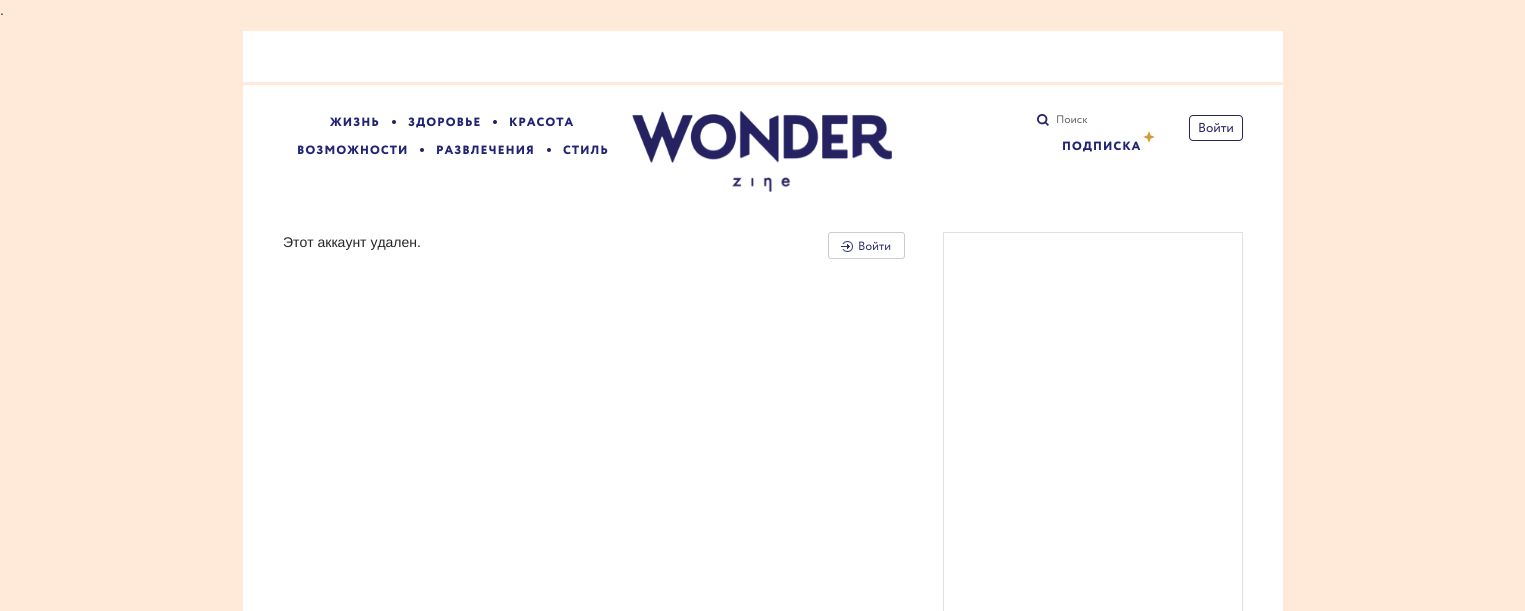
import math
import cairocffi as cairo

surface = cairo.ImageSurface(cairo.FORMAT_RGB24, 1525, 611)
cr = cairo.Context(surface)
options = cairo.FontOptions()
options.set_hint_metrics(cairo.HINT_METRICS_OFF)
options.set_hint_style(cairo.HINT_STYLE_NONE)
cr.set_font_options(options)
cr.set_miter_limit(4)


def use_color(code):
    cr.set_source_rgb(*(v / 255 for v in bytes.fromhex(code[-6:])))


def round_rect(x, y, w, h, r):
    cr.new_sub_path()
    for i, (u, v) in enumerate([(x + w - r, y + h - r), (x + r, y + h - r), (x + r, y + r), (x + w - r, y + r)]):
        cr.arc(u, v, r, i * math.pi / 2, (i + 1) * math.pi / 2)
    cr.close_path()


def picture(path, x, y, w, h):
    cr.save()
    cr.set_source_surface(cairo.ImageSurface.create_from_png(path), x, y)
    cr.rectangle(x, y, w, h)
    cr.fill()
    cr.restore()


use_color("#ffeada")
cr.paint()
cr.select_font_face("Liberation Sans")
cr.set_font_size(14)
use_color("#262626")
cr.move_to(0, 15)
cr.show_text(".")
use_color("#ffffff")
cr.rectangle(243, 31, 1040, 51)
cr.fill()
cr.rectangle(243, 85, 1040, 117)
cr.fill()
picture("img1.png", 330, 117, 49, 10)
use_color("#262261")
cr.arc(394, 122, 2, 0, 2 * math.pi)
cr.fill()
picture("img2.png", 408, 117, 72, 11)
cr.arc(495, 122, 2, 0, 2 * math.pi)
cr.fill()
picture("img3.png", 510, 117, 64, 10)
picture("img4.png", 298, 145, 109, 10)
cr.arc(422, 150, 2, 0, 2 * math.pi)
cr.fill()
picture("img5.png", 437, 145, 96, 10)
cr.arc(549, 150, 2, 0, 2 * math.pi)
cr.fill()
picture("img6.png", 563, 145, 45, 10)
picture("img7.png", 632, 111, 260, 53)
picture("img8.png", 732, 177, 59, 15)
picture("img9.png", 1037, 114, 12, 12)
picture("img10.png", 1057, 115, 31, 9)
round_rect(1189.5, 115.5, 53, 25, 3.5)
cr.set_line_width(1)
cr.stroke()
picture("img11.png", 1199, 122, 34, 11)
picture("img12.png", 1143, 131, 12, 12)
picture("img13.png", 1063, 141, 78, 11)
use_color("#ffffff")
cr.rectangle(243, 202, 1040, 409)
cr.fill()
use_color("#262626")
cr.move_to(283, 247)
cr.show_text("Этот аккаунт удален.")
round_rect(828.5, 232.5, 76, 26, 2.5)
use_color("#cccccc")
cr.stroke()
picture("img14.png", 841, 241, 12, 11)
picture("img15.png", 859, 241, 32, 10)
cr.rectangle(943.5, 232.5, 299, 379)
use_color("#e1e1e1")
cr.stroke()
surface.write_to_png("result.png")
